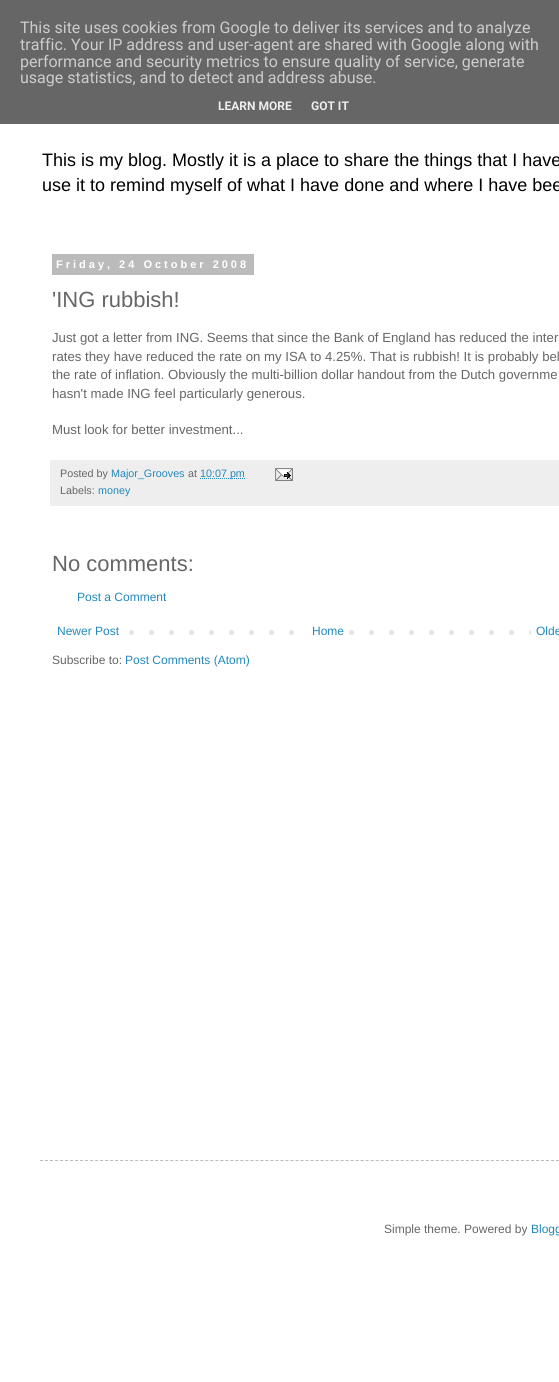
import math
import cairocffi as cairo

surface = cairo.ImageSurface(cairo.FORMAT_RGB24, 559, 1382)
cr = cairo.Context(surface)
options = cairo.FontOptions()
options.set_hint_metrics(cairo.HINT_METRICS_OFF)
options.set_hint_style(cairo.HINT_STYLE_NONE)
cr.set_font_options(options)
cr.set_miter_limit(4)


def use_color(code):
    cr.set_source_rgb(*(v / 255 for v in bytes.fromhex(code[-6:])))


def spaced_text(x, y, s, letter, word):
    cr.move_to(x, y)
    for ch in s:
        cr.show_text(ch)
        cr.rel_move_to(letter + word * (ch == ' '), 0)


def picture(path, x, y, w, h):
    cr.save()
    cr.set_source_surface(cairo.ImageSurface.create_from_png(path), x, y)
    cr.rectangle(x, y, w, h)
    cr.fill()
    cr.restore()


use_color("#ffffff")
cr.paint()
use_color("#666666")
cr.rectangle(0, 0, 559, 124)
cr.fill()
cr.select_font_face("Roboto")
cr.set_font_size(16)
use_color("#cccccc")
cr.move_to(20, 33)
cr.show_text("This site uses cookies from Google to deliver its services and to analyze")
cr.move_to(20, 50)
cr.show_text("traffic. Your IP address and user-agent are shared with Google along with")
cr.move_to(20, 67)
cr.show_text("performance and security metrics to ensure quality of service, generate")
cr.move_to(20, 83)
cr.show_text("usage statistics, and to detect and address abuse.")
cr.select_font_face("Roboto", cairo.FONT_SLANT_NORMAL, cairo.FONT_WEIGHT_BOLD)
cr.set_font_size(12)
use_color("#eeeeee")
cr.move_to(218, 110)
cr.show_text("LEARN MORE")
cr.move_to(311, 110)
cr.show_text("GOT IT")
cr.select_font_face("Liberation Sans")
cr.set_font_size(18)
use_color("#000000")
cr.move_to(42, 166)
cr.show_text("This is my blog. Mostly it is a place to share the things that I have")
cr.move_to(42, 191)
cr.show_text("use it to remind myself of what I have done and where I have bee")
use_color("#bbbbbb")
cr.rectangle(52, 254, 202, 21)
cr.fill()
cr.select_font_face("Liberation Sans", cairo.FONT_SLANT_NORMAL, cairo.FONT_WEIGHT_BOLD)
cr.set_font_size(11)
use_color("#ffffff")
spaced_text(56, 268, "Friday, 24 October 2008", 3, 0)
cr.select_font_face("Liberation Sans")
cr.set_font_size(22)
use_color("#666666")
cr.move_to(52, 307)
cr.show_text("'ING rubbish!")
cr.set_font_size(13.2)
cr.move_to(52, 342)
cr.show_text("Just got a letter from ING. Seems that since the Bank of England has reduced the inter")
cr.move_to(52, 361)
cr.show_text("rates they have reduced the rate on my ISA to 4.25%. That is rubbish! It is probably bel")
cr.move_to(52, 379)
cr.show_text("the rate of inflation. Obviously the multi-billion dollar handout from the Dutch governme")
cr.move_to(52, 398)
cr.show_text("hasn't made ING feel particularly generous.")
cr.move_to(52, 434)
cr.show_text("Must look for better investment...")
use_color("#eeeeee")
cr.rectangle(50, 460, 509, 46)
cr.fill()
cr.set_font_size(10.75)
use_color("#666666")
cr.move_to(60, 477)
cr.show_text("Posted by")
use_color("#2288bb")
cr.move_to(111, 477)
cr.show_text("Major_Grooves")
use_color("#666666")
cr.move_to(188, 477)
cr.show_text("at")
cr.new_path()
cr.move_to(200, 478.5)
cr.line_to(245, 478.5)
use_color("#2288bb")
cr.set_line_width(1)
cr.set_dash([1, 1])
cr.stroke()
cr.move_to(200, 477)
cr.show_text("10:07 pm")
picture("img1.png", 275, 468, 18, 13)
use_color("#666666")
cr.move_to(60, 494)
cr.show_text("Labels:")
use_color("#2288bb")
cr.move_to(98, 494)
cr.show_text("money")
cr.set_font_size(22)
use_color("#666666")
cr.move_to(52, 571)
cr.show_text("No comments:")
cr.set_font_size(12)
use_color("#2288bb")
cr.move_to(77, 601)
cr.show_text("Post a Comment")
picture("img2.png", 129, 630, 402, 5)
cr.move_to(57, 635)
cr.show_text("Newer Post")
use_color("#ffffff")
cr.rectangle(309, 630, 26, 5)
cr.fill()
use_color("#2288bb")
cr.move_to(312, 635)
cr.show_text("Home")
cr.move_to(536, 635)
cr.show_text("Olde")
use_color("#666666")
cr.move_to(52, 664)
cr.show_text("Subscribe to:")
use_color("#2288bb")
cr.move_to(125, 664)
cr.show_text("Post Comments (Atom)")
cr.new_path()
cr.move_to(40, 1160.5)
cr.line_to(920, 1160.5)
use_color("#bbbbbb")
cr.set_dash([3, 2.01])
cr.stroke()
use_color("#666666")
cr.move_to(384, 1233)
cr.show_text("Simple theme. Powered by")
use_color("#2288bb")
cr.move_to(531, 1233)
cr.show_text("Blogg")
surface.write_to_png("result.png")
